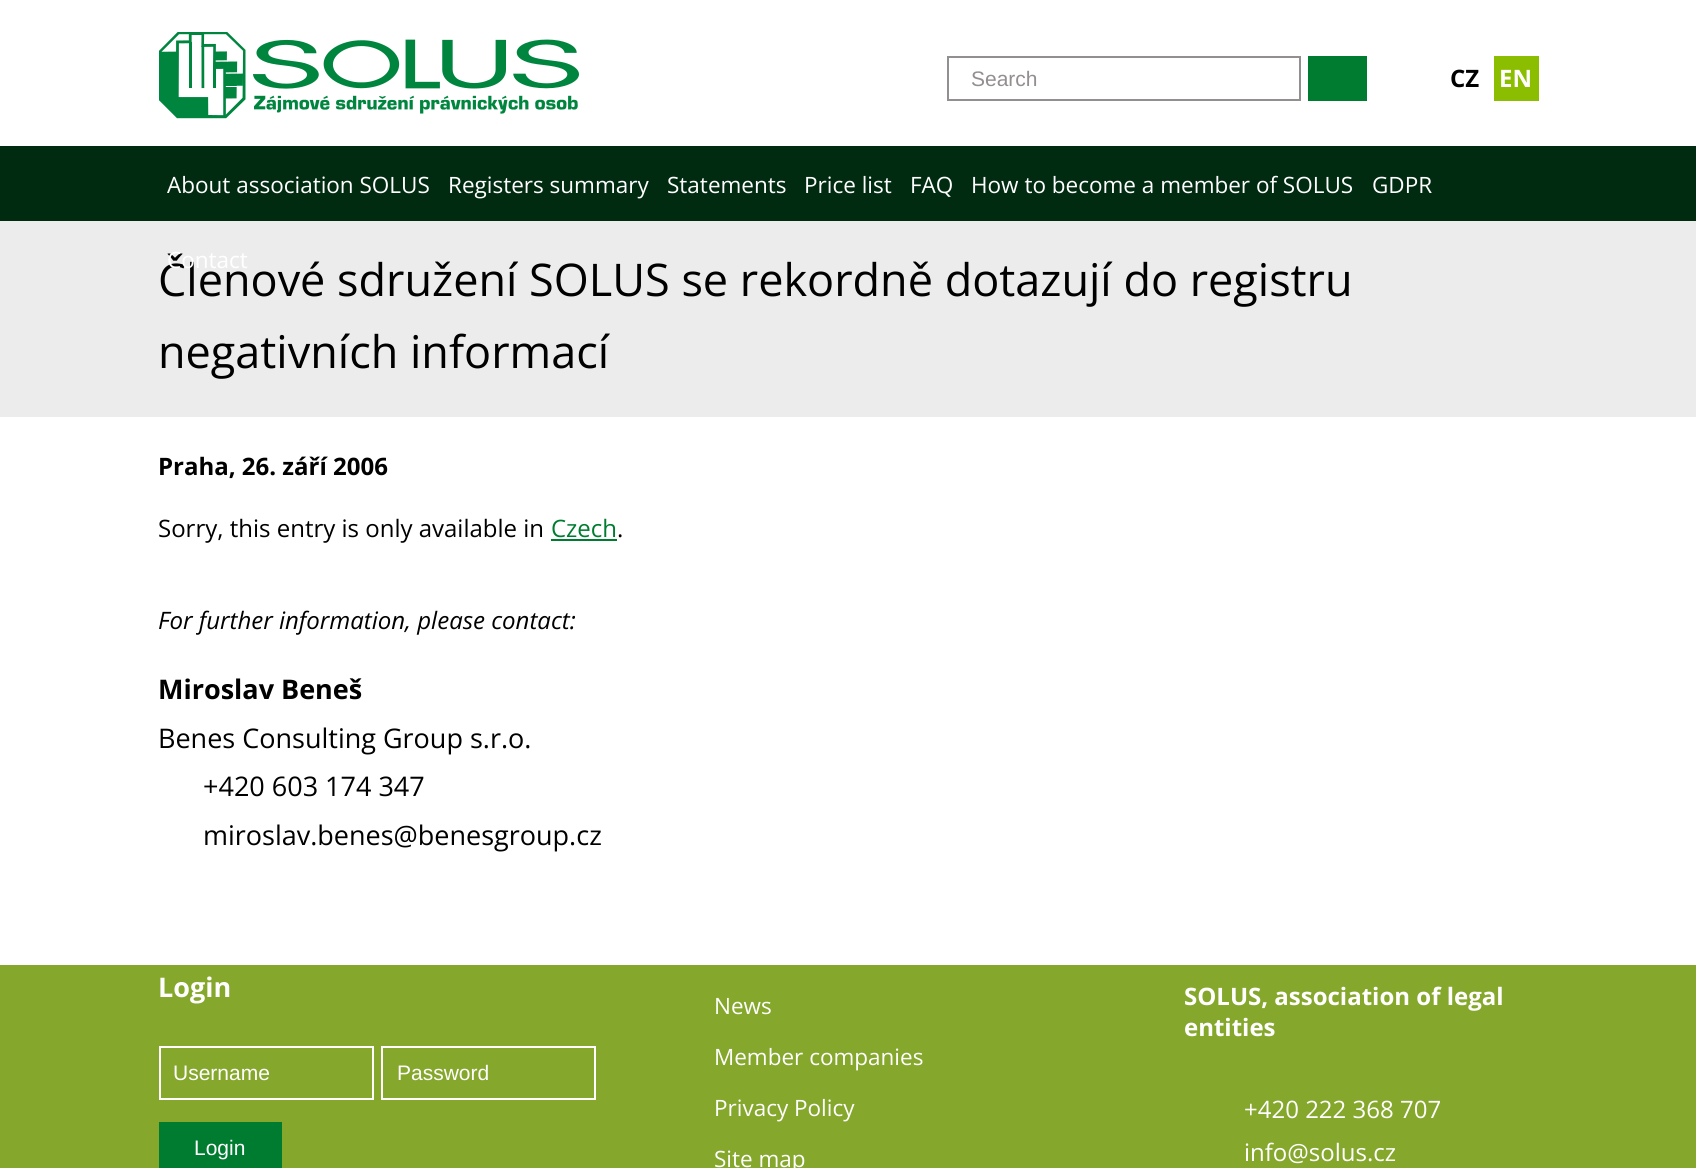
import math
import cairocffi as cairo

surface = cairo.ImageSurface(cairo.FORMAT_RGB24, 1696, 1168)
cr = cairo.Context(surface)
options = cairo.FontOptions()
options.set_hint_metrics(cairo.HINT_METRICS_OFF)
options.set_hint_style(cairo.HINT_STYLE_NONE)
cr.set_font_options(options)
cr.set_miter_limit(4)


def use_color(code):
    cr.set_source_rgb(*(v / 255 for v in bytes.fromhex(code[-6:])))


def picture(path, x, y, w, h):
    cr.save()
    cr.set_source_surface(cairo.ImageSurface.create_from_png(path), x, y)
    cr.rectangle(x, y, w, h)
    cr.fill()
    cr.restore()


use_color("#ffffff")
cr.paint()
picture("img1.png", 159, 32, 420, 87)
cr.rectangle(948, 57, 352, 43)
use_color("#928f8e")
cr.stroke()
cr.select_font_face("Liberation Sans")
cr.set_font_size(21)
cr.move_to(971, 86)
cr.show_text("Search")
use_color("#007c30")
cr.rectangle(1308, 56, 59, 45)
cr.fill()
cr.select_font_face("Open Sans", cairo.FONT_SLANT_NORMAL, cairo.FONT_WEIGHT_BOLD)
cr.set_font_size(24)
use_color("#000000")
cr.move_to(1450, 87)
cr.show_text("CZ")
use_color("#8bbe00")
cr.rectangle(1494, 56, 45, 45)
cr.fill()
use_color("#ffffff")
cr.move_to(1499, 87)
cr.show_text("EN")
use_color("#012b11")
cr.rectangle(0, 146, 1696, 75)
cr.fill()
cr.select_font_face("Open Sans")
cr.set_font_size(22.5)
use_color("#ffffff")
cr.move_to(167, 193)
cr.show_text("About association SOLUS")
cr.move_to(448, 193)
cr.show_text("Registers summary")
cr.move_to(667, 193)
cr.show_text("Statements")
cr.move_to(804, 193)
cr.show_text("Price list")
cr.move_to(910, 193)
cr.show_text("FAQ")
cr.move_to(971, 193)
cr.show_text("How to become a member of SOLUS")
cr.move_to(1372, 193)
cr.show_text("GDPR")
use_color("#ececec")
cr.rectangle(0, 221, 1696, 196)
cr.fill()
cr.set_font_size(45)
use_color("#000000")
cr.move_to(158, 296)
cr.show_text("Členové sdružení SOLUS se rekordně dotazují do registru")
cr.set_font_size(22.5)
use_color("#ffffff")
cr.move_to(167, 268)
cr.show_text("Contact")
cr.set_font_size(45)
use_color("#000000")
cr.move_to(158, 368)
cr.show_text("negativních informací")
cr.select_font_face("Open Sans", cairo.FONT_SLANT_NORMAL, cairo.FONT_WEIGHT_BOLD)
cr.set_font_size(24)
cr.move_to(158, 475)
cr.show_text("Praha, 26. září 2006")
cr.select_font_face("Open Sans")
cr.move_to(158, 537)
cr.show_text("Sorry, this entry is only available in")
use_color("#007c30")
cr.move_to(551, 537)
cr.show_text("Czech")
cr.rectangle(551, 539, 66, 2)
cr.fill()
use_color("#000000")
cr.move_to(617, 537)
cr.show_text(".")
cr.select_font_face("Open Sans", cairo.FONT_SLANT_ITALIC)
cr.move_to(158, 629)
cr.show_text("For further information, please contact:")
cr.select_font_face("Open Sans", cairo.FONT_SLANT_NORMAL, cairo.FONT_WEIGHT_BOLD)
cr.set_font_size(27)
cr.move_to(158, 699)
cr.show_text("Miroslav Beneš")
cr.select_font_face("Open Sans")
cr.move_to(158, 748)
cr.show_text("Benes Consulting Group s.r.o.")
cr.move_to(203, 796)
cr.show_text("+420 603 174 347")
cr.move_to(203, 845)
cr.show_text("miroslav.benes@benesgroup.cz")
use_color("#84a72c")
cr.rectangle(0, 965, 1696, 203)
cr.fill()
cr.select_font_face("Open Sans", cairo.FONT_SLANT_NORMAL, cairo.FONT_WEIGHT_BOLD)
use_color("#ffffff")
cr.move_to(158, 997)
cr.show_text("Login")
cr.rectangle(160, 1047, 213, 52)
cr.stroke()
cr.select_font_face("Liberation Sans")
cr.set_font_size(21)
cr.move_to(173, 1080)
cr.show_text("Username")
cr.rectangle(382, 1047, 213, 52)
cr.stroke()
cr.move_to(397, 1080)
cr.show_text("Password")
use_color("#007c30")
cr.rectangle(159, 1122, 123, 46)
cr.fill()
use_color("#ffffff")
cr.move_to(194, 1155)
cr.show_text("Login")
cr.select_font_face("Open Sans")
cr.set_font_size(22.5)
cr.move_to(714, 1014)
cr.show_text("News")
cr.move_to(714, 1065)
cr.show_text("Member companies")
cr.move_to(714, 1116)
cr.show_text("Privacy Policy")
cr.move_to(714, 1167)
cr.show_text("Site map")
cr.select_font_face("Open Sans", cairo.FONT_SLANT_NORMAL, cairo.FONT_WEIGHT_BOLD)
cr.set_font_size(24)
cr.move_to(1184, 1005)
cr.show_text("SOLUS, association of legal")
cr.move_to(1184, 1036)
cr.show_text("entities")
cr.select_font_face("Open Sans")
cr.move_to(1244, 1118)
cr.show_text("+420 222 368 707")
cr.move_to(1244, 1161)
cr.show_text("info@solus.cz")
surface.write_to_png("result.png")
